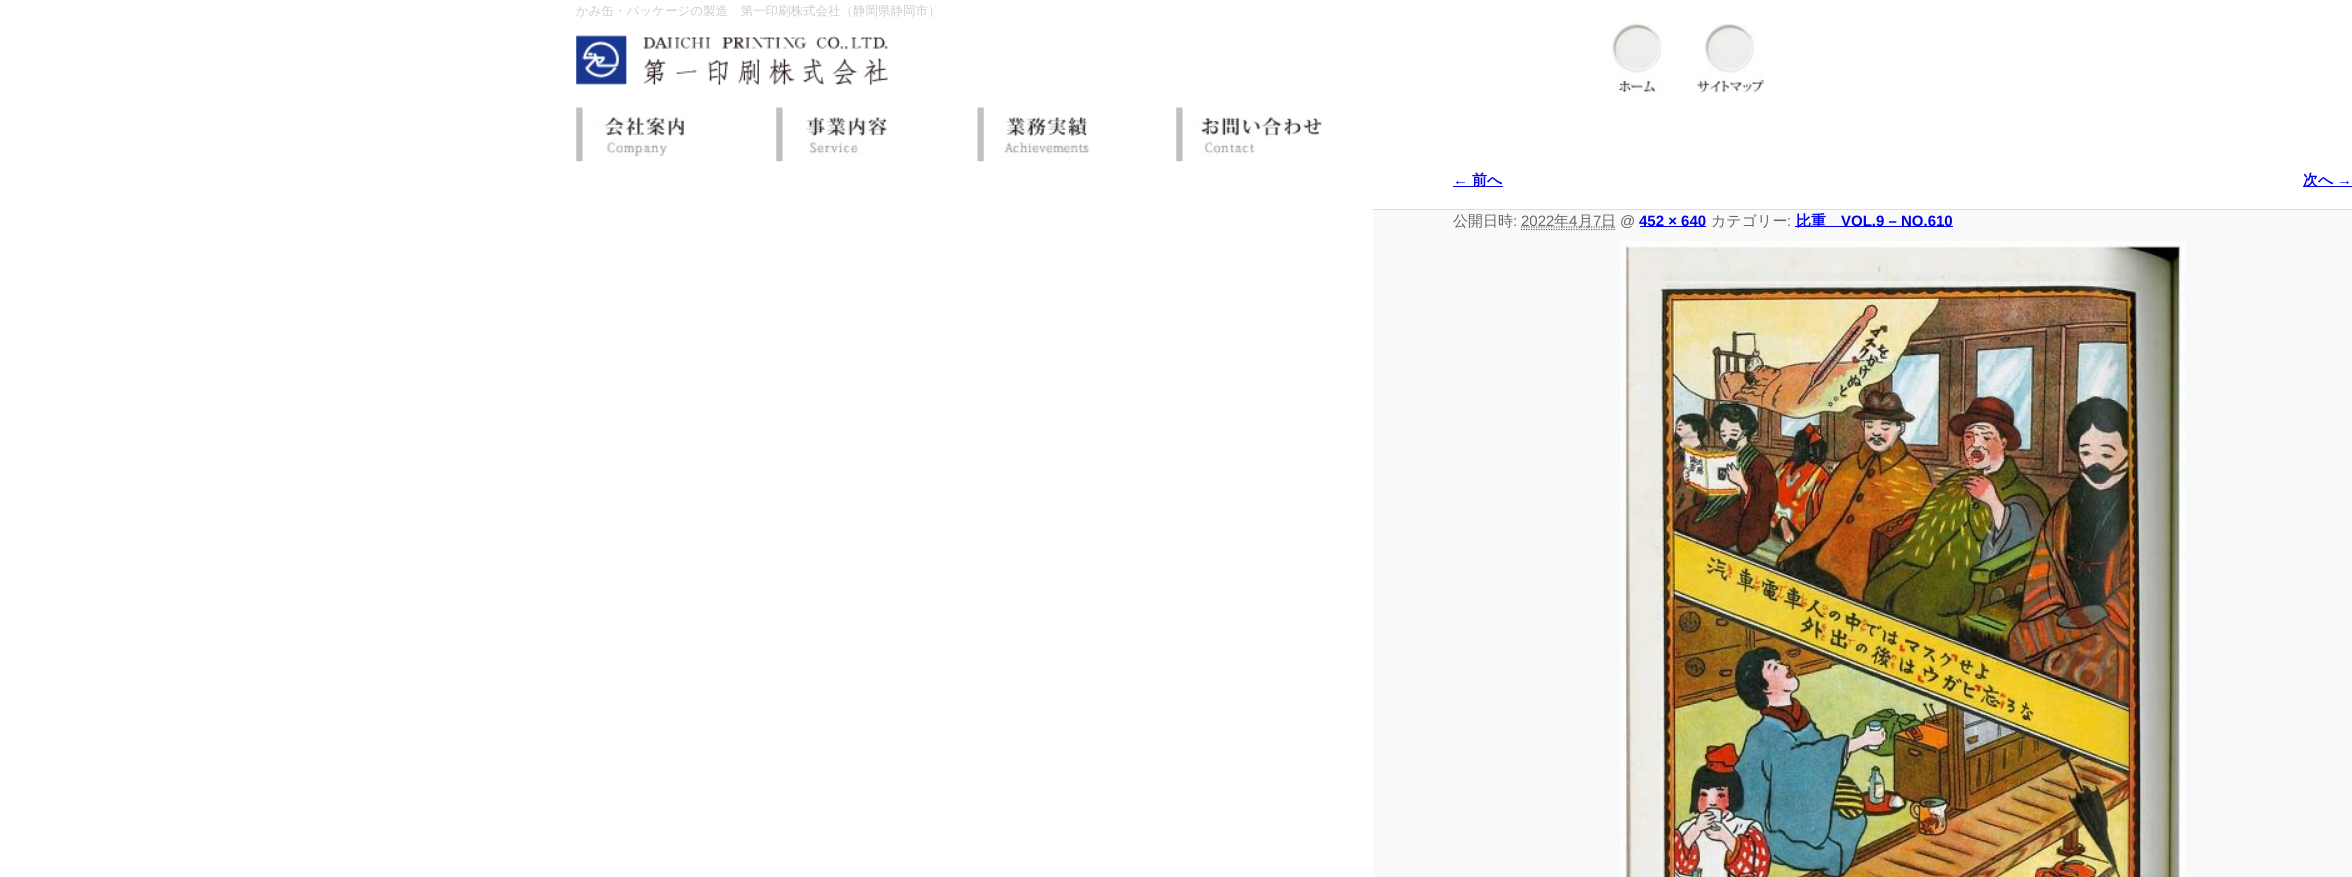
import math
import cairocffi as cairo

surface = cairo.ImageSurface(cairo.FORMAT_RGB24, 2352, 877)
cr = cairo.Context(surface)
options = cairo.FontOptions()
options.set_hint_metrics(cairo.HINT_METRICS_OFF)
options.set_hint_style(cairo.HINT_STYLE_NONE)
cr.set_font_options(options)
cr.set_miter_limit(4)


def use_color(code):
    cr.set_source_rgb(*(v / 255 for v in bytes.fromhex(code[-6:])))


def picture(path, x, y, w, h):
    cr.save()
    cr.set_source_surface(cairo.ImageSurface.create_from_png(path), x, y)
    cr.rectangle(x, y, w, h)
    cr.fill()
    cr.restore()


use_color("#ffffff")
cr.paint()
cr.select_font_face("WenQuanYi Zen Hei Medium")
cr.set_font_size(12.5)
use_color("#cccccc")
cr.move_to(576, 15)
cr.show_text("かみ缶・パッケージの製造　第一印刷株式会社（静岡県静岡市）")
picture("img1.png", 576, 35, 313, 50)
picture("img2.png", 1611, 23, 51, 70)
picture("img3.png", 1697, 23, 67, 70)
picture("img4.png", 576, 107, 109, 55)
picture("img5.png", 776, 107, 111, 55)
picture("img6.png", 977, 107, 113, 55)
picture("img7.png", 1176, 107, 146, 55)
cr.select_font_face("Liberation Sans", cairo.FONT_SLANT_NORMAL, cairo.FONT_WEIGHT_BOLD)
cr.set_font_size(15)
use_color("#0000ee")
cr.move_to(1453, 185)
cr.show_text("←")
cr.rectangle(1453, 186, 50, 1)
cr.fill()
cr.select_font_face("WenQuanYi Zen Hei", cairo.FONT_SLANT_NORMAL, cairo.FONT_WEIGHT_BOLD)
cr.move_to(1472, 185)
cr.show_text("前へ")
cr.rectangle(2303, 186, 49, 1)
cr.fill()
cr.move_to(2303, 185)
cr.show_text("次へ")
cr.select_font_face("Liberation Sans", cairo.FONT_SLANT_NORMAL, cairo.FONT_WEIGHT_BOLD)
cr.move_to(2337, 185)
cr.show_text("→")
use_color("#f9f9f9")
cr.rectangle(1373, 210, 979, 667)
cr.fill()
use_color("#dddddd")
cr.rectangle(1373, 209, 979, 1)
cr.fill()
picture("img8.png", 1620, 241, 565, 636)
cr.select_font_face("WenQuanYi Zen Hei Medium")
use_color("#666666")
cr.move_to(1453, 226)
cr.show_text("公開日時")
cr.select_font_face("Liberation Sans")
cr.move_to(1513, 226)
cr.show_text(":")
cr.new_path()
cr.move_to(1521, 227)
cr.line_to(1616, 227)
cr.set_line_width(1.2)
cr.set_dash([1.25, 1.25])
cr.stroke()
cr.move_to(1521, 226)
cr.show_text("2022")
cr.new_path()
cr.move_to(1521, 229.5)
cr.line_to(1616, 229.5)
cr.stroke()
cr.select_font_face("WenQuanYi Zen Hei Medium")
cr.move_to(1554, 226)
cr.show_text("年")
cr.select_font_face("Liberation Sans")
cr.move_to(1569, 226)
cr.show_text("4")
cr.select_font_face("WenQuanYi Zen Hei Medium")
cr.move_to(1578, 226)
cr.show_text("月")
cr.select_font_face("Liberation Sans")
cr.move_to(1593, 226)
cr.show_text("7")
cr.select_font_face("WenQuanYi Zen Hei Medium")
cr.move_to(1601, 226)
cr.show_text("日")
cr.select_font_face("Liberation Sans")
cr.move_to(1620, 226)
cr.show_text("@")
use_color("#0000ee")
cr.rectangle(1640, 226, 66, 1)
cr.fill()
cr.select_font_face("Liberation Sans", cairo.FONT_SLANT_NORMAL, cairo.FONT_WEIGHT_BOLD)
cr.move_to(1639, 226)
cr.show_text("452 × 640")
cr.select_font_face("WenQuanYi Zen Hei Medium")
use_color("#666666")
cr.move_to(1711, 226)
cr.show_text("カテゴリー")
cr.select_font_face("Liberation Sans")
cr.move_to(1787, 226)
cr.show_text(":")
use_color("#0000ee")
cr.rectangle(1795, 226, 158, 1)
cr.fill()
cr.select_font_face("WenQuanYi Zen Hei", cairo.FONT_SLANT_NORMAL, cairo.FONT_WEIGHT_BOLD)
cr.move_to(1796, 226)
cr.show_text("比重")
cr.select_font_face("Liberation Sans", cairo.FONT_SLANT_NORMAL, cairo.FONT_WEIGHT_BOLD)
cr.move_to(1841, 226)
cr.show_text("VOL.9 – NO.610")
surface.write_to_png("result.png")
